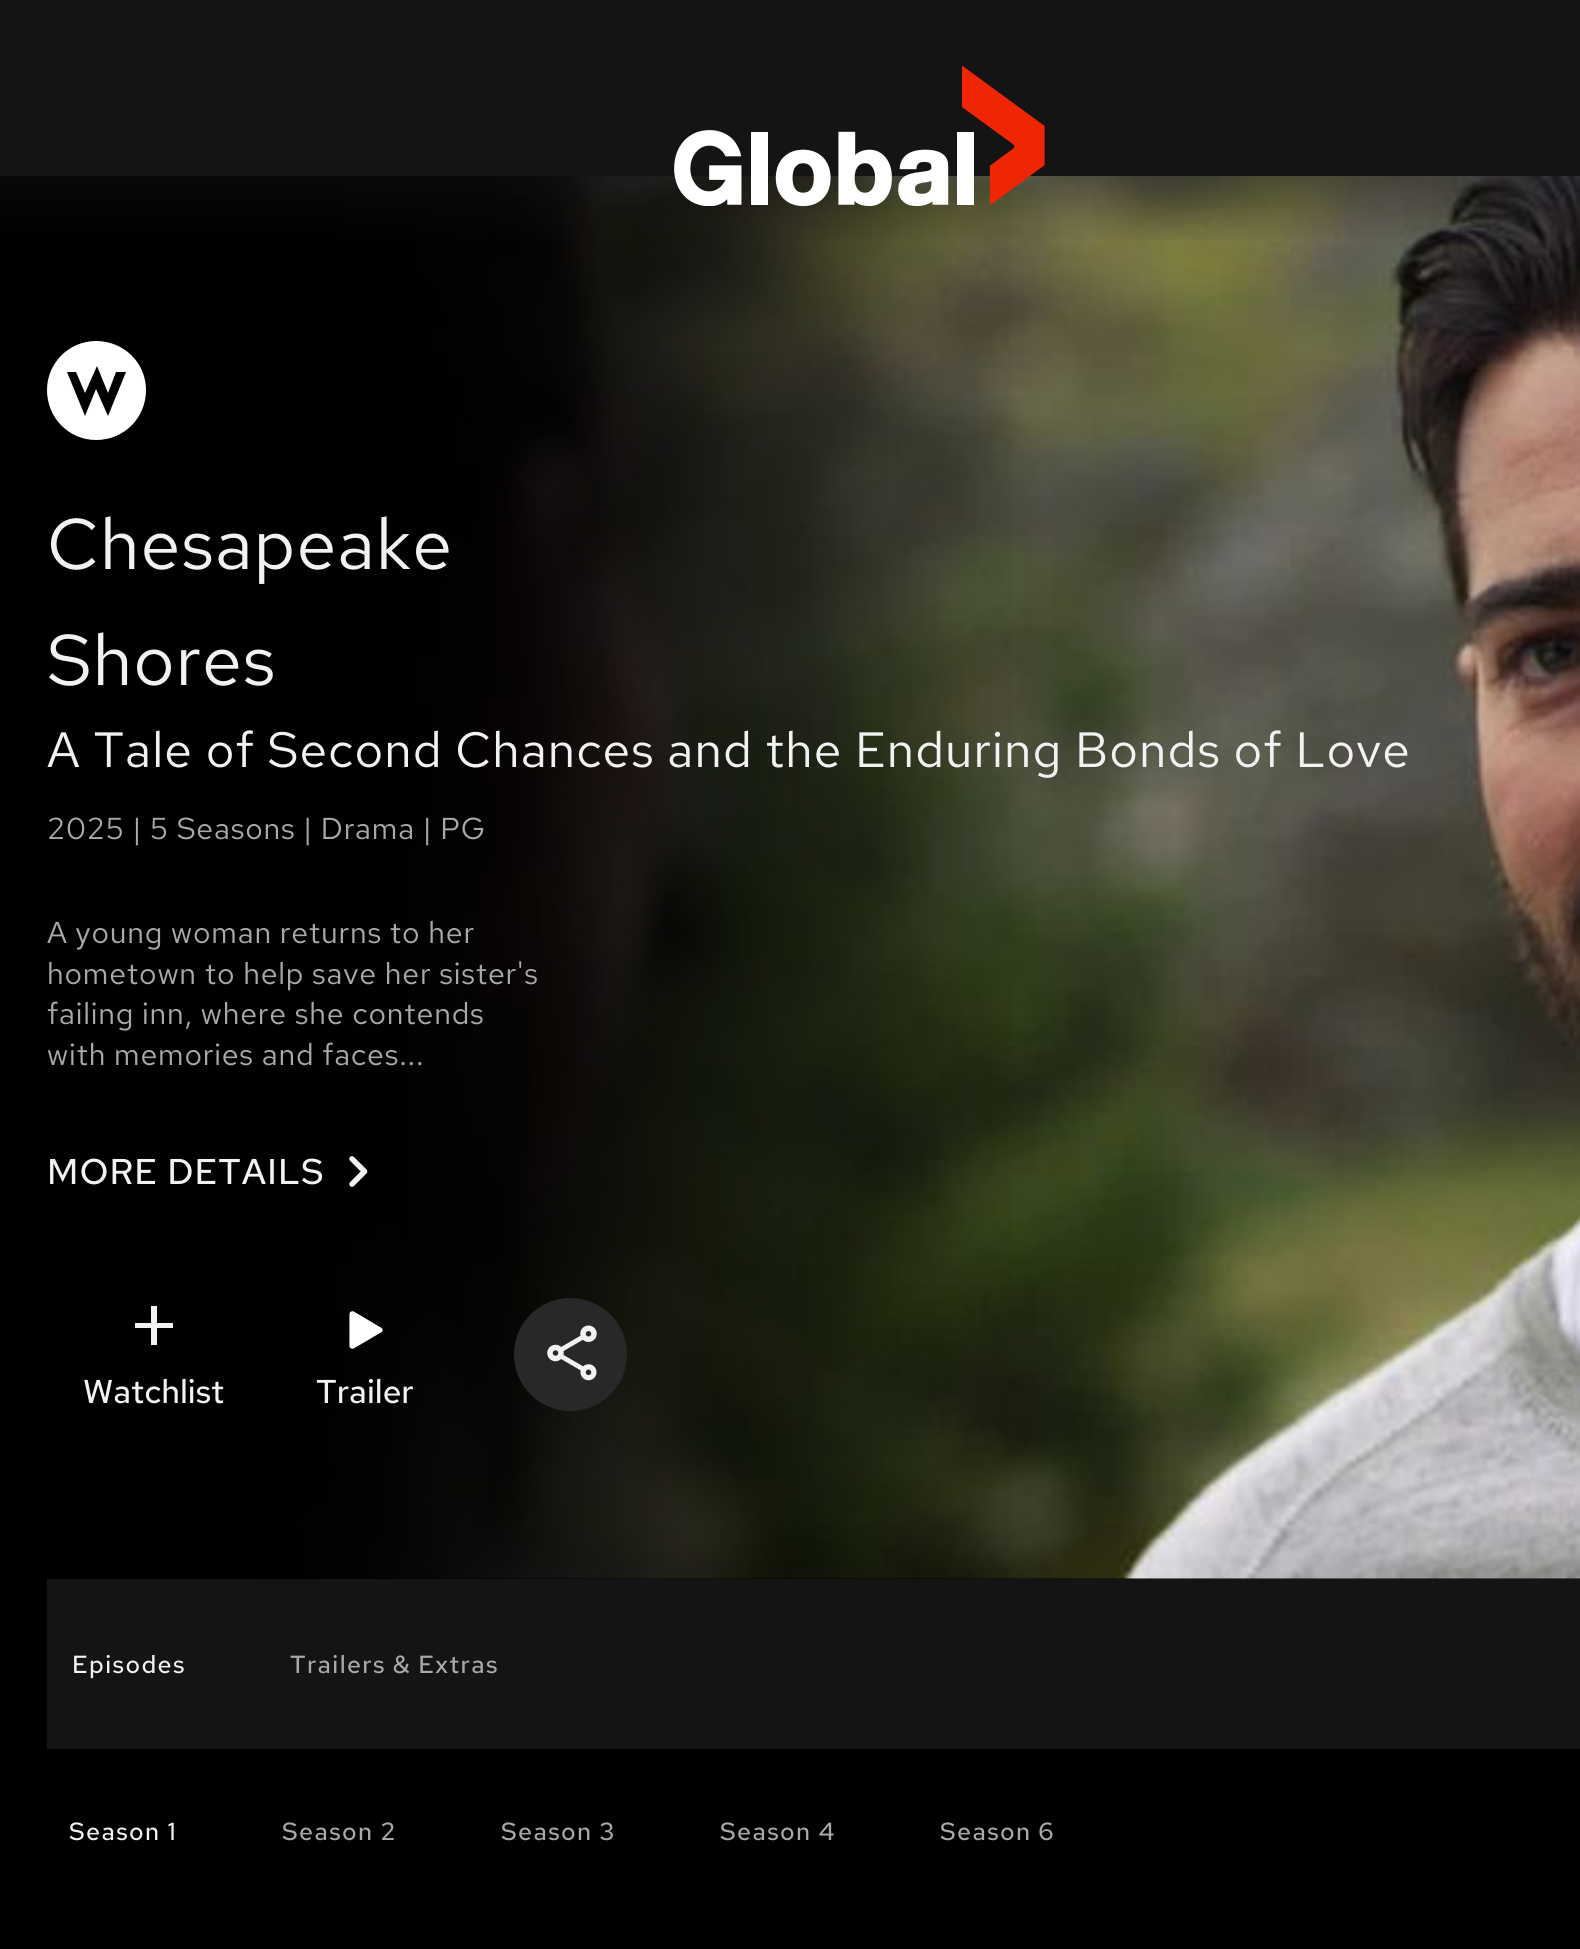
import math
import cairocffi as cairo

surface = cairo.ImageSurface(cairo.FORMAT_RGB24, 1580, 1949)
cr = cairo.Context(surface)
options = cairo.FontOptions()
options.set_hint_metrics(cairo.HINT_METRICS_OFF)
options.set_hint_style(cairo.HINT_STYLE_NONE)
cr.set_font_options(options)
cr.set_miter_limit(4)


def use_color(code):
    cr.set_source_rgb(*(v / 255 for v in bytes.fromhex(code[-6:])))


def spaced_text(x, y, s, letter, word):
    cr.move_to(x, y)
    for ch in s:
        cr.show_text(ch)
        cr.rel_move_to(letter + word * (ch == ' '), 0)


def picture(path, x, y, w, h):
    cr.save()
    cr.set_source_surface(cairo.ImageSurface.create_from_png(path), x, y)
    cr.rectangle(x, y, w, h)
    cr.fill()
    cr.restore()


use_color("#141414")
cr.paint()
use_color("#000000")
cr.rectangle(0, 1578, 1580, 371)
cr.fill()
picture("img2.png", 211, 176, 1369, 1403)
gradient = cairo.LinearGradient(0, 877, 1029, 877)
gradient.add_color_stop_rgba(0.2, 0, 0, 0, 1)
gradient.add_color_stop_rgba(1, 0, 0, 0, 0)
cr.set_source(gradient)
cr.rectangle(0, 176, 1011, 1403)
cr.fill()
gradient = cairo.LinearGradient(791, 245, 791, 69)
gradient.add_color_stop_rgba(0, 0.078, 0.078, 0.078, 0)
gradient.add_color_stop_rgba(1, 0.078, 0.078, 0.078, 1)
cr.set_source(gradient)
cr.rectangle(0, 176, 1580, 64)
cr.fill()
picture("img1.png", 674, 66, 371, 140)
use_color("#ffffff")
cr.new_path()
cr.move_to(146, 390)
cr.curve_to(146, 418, 124, 440, 96, 440)
cr.curve_to(69, 440, 47, 418, 47, 390)
cr.curve_to(47, 363, 69, 341, 96, 341)
cr.curve_to(124, 341, 146, 363, 146, 390)
cr.close_path()
cr.move_to(85, 416)
cr.line_to(96, 389)
cr.line_to(108, 416)
cr.line_to(126, 372)
cr.line_to(116, 372)
cr.line_to(108, 393)
cr.line_to(97, 366)
cr.line_to(85, 393)
cr.line_to(76, 372)
cr.line_to(67, 372)
cr.close_path()
cr.fill()
cr.select_font_face("Red Hat Text")
cr.set_font_size(71.5)
use_color("#f2f2f2")
spaced_text(47, 569, "Chesapeake", 1.1, 0)
spaced_text(47, 685, "Shores", 1.1, 0)
cr.set_font_size(49.5)
spaced_text(47, 767, "A Tale of Second Chances and the Enduring Bonds of Love", 1.1, 0)
cr.set_font_size(30.25)
use_color("#a9a9a9")
spaced_text(47, 839, "2025 | 5 Seasons | Drama | PG", 0.8, 0)
spaced_text(47, 943, "A young woman returns to her", 0.8, 0)
spaced_text(47, 984, "hometown to help save her sister's", 0.8, 0)
spaced_text(47, 1024, "failing inn, where she contends", 0.8, 0)
spaced_text(47, 1065, "with memories and faces...", 0.8, 0)
cr.select_font_face("Red Hat Text Medium")
cr.set_font_size(35.75)
use_color("#f2f2f2")
spaced_text(47, 1184, "MORE DETAILS", 1.1, 0)
picture("img3.png", 349, 1156, 19, 31)
cr.new_path()
cr.move_to(173, 1328)
cr.line_to(157, 1328)
cr.line_to(157, 1345)
cr.line_to(151, 1345)
cr.line_to(151, 1328)
cr.line_to(135, 1328)
cr.line_to(135, 1323)
cr.line_to(151, 1323)
cr.line_to(151, 1306)
cr.line_to(157, 1306)
cr.line_to(157, 1323)
cr.line_to(173, 1323)
cr.close_path()
cr.fill()
cr.set_font_size(33)
cr.move_to(83, 1403)
cr.show_text("Watchlist")
picture("img4.png", 349, 1311, 34, 38)
cr.move_to(316, 1403)
cr.show_text("Trailer")
use_color("#282828")
cr.new_path()
cr.arc(570.5, 1354.5, 56.5, 0, 2 * math.pi)
cr.fill()
picture("img5.png", 547, 1325, 50, 56)
use_color("#141414")
cr.rectangle(47, 1579, 1533, 170)
cr.fill()
cr.set_font_size(24.75)
use_color("#f2f2f2")
spaced_text(72, 1673, "Episodes", 1.4, 0)
use_color("#a9a9a9")
spaced_text(290, 1673, "Trailers & Extras", 1.4, 0)
use_color("#f2f2f2")
spaced_text(69, 1840, "Season 1", 1.4, 0)
use_color("#a9a9a9")
spaced_text(282, 1840, "Season 2", 1.4, 0)
spaced_text(501, 1840, "Season 3", 1.4, 0)
spaced_text(720, 1840, "Season 4", 1.4, 0)
spaced_text(940, 1840, "Season 6", 1.4, 0)
surface.write_to_png("result.png")
